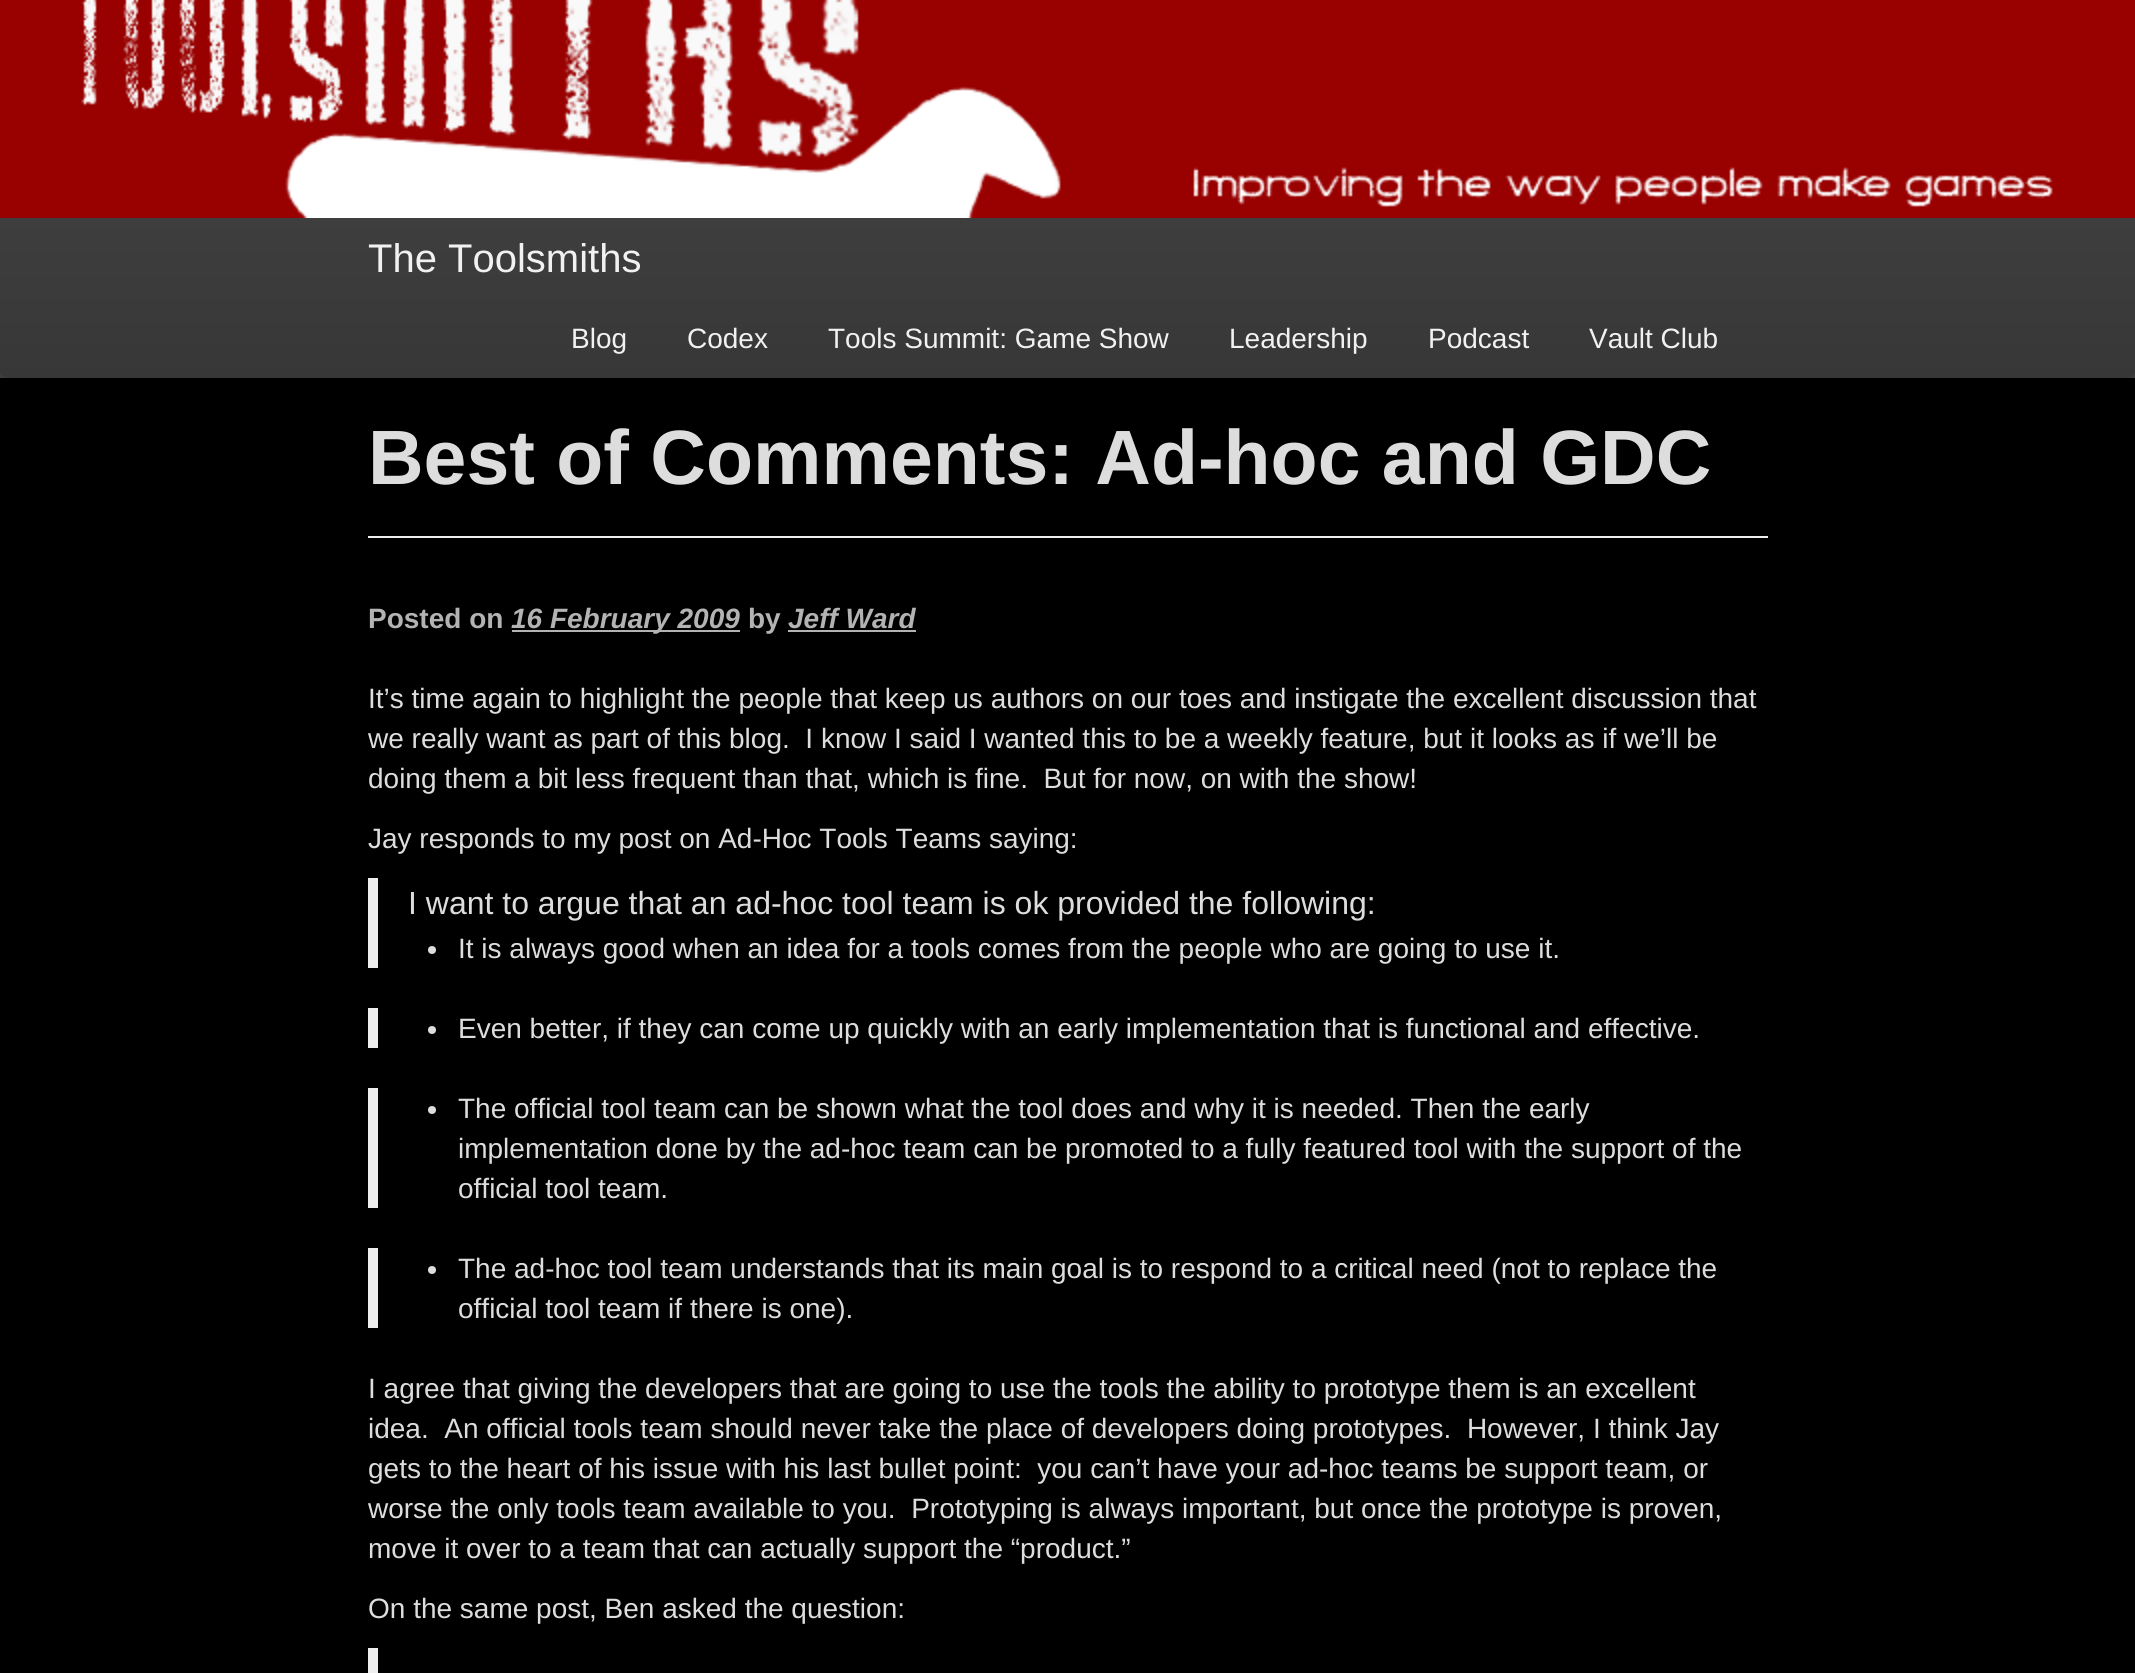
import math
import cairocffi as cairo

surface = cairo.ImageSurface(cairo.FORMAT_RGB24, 2135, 1673)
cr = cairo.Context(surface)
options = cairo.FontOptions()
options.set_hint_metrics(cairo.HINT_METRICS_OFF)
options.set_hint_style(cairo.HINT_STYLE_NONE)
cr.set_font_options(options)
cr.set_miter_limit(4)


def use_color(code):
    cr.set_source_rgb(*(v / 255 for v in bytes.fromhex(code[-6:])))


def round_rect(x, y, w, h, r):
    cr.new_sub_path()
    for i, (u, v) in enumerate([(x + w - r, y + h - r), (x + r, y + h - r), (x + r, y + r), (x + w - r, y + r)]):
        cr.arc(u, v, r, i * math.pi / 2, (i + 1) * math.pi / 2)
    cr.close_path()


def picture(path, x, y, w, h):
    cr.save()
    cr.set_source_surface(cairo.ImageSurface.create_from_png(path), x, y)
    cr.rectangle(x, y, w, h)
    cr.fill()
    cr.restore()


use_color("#000000")
cr.paint()
use_color("#990000")
cr.rectangle(0, 0, 2135, 218)
cr.fill()
picture("img1.png", 81, 0, 1972, 218)
use_color("#3e3e3e")
cr.rectangle(0, 218, 2135, 160)
cr.fill()
gradient = cairo.LinearGradient(1068, 218, 1068, 378)
gradient.add_color_stop_rgba(0, 0.243, 0.243, 0.243, 1)
gradient.add_color_stop_rgba(1, 0.216, 0.216, 0.216, 1)
cr.set_source(gradient)
round_rect(0, 218, 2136, 160, 8)
cr.fill()
cr.select_font_face("Liberation Sans")
cr.set_font_size(40)
use_color("#f1f1f1")
cr.move_to(368, 272)
cr.show_text("The Toolsmiths")
cr.set_font_size(28)
cr.move_to(571, 348)
cr.show_text("Blog")
cr.move_to(687, 348)
cr.show_text("Codex")
cr.move_to(828, 348)
cr.show_text("Tools Summit: Game Show")
cr.move_to(1229, 348)
cr.show_text("Leadership")
cr.move_to(1428, 348)
cr.show_text("Podcast")
cr.move_to(1589, 348)
cr.show_text("Vault Club")
use_color("#eeeeee")
cr.rectangle(368, 536, 1400, 2)
cr.fill()
cr.select_font_face("Liberation Sans", cairo.FONT_SLANT_NORMAL, cairo.FONT_WEIGHT_BOLD)
cr.set_font_size(77)
use_color("#dddddd")
cr.move_to(368, 484)
cr.show_text("Best of Comments: Ad-hoc and GDC")
cr.set_font_size(28)
use_color("#b3b3b3")
cr.move_to(368, 628)
cr.show_text("Posted on")
cr.rectangle(512, 630, 228, 2)
cr.fill()
cr.select_font_face("Liberation Sans", cairo.FONT_SLANT_ITALIC, cairo.FONT_WEIGHT_BOLD)
cr.move_to(511, 628)
cr.show_text("16 February 2009")
cr.select_font_face("Liberation Sans", cairo.FONT_SLANT_NORMAL, cairo.FONT_WEIGHT_BOLD)
cr.move_to(748, 628)
cr.show_text("by")
cr.select_font_face("Liberation Sans", cairo.FONT_SLANT_ITALIC, cairo.FONT_WEIGHT_BOLD)
cr.move_to(788, 628)
cr.show_text("Jeff Ward")
cr.rectangle(788, 630, 128, 2)
cr.fill()
cr.select_font_face("Liberation Sans")
use_color("#dddddd")
cr.move_to(368, 708)
cr.show_text("It’s time again to highlight the people that keep us authors on our toes and instigate the excellent discussion that")
cr.move_to(368, 748)
cr.show_text("we really want as part of this blog.  I know I said I wanted this to be a weekly feature, but it looks as if we’ll be")
cr.move_to(368, 788)
cr.show_text("doing them a bit less frequent than that, which is fine.  But for now, on with the show!")
cr.move_to(368, 848)
cr.show_text("Jay responds to my post on Ad-Hoc Tools Teams saying:")
use_color("#eeeeee")
cr.rectangle(368, 878, 10, 90)
cr.fill()
cr.set_font_size(32)
use_color("#dddddd")
cr.move_to(408, 914)
cr.show_text("I want to argue that an ad-hoc tool team is ok provided the following:")
cr.new_path()
cr.arc(432, 950, 4, 0, 2 * math.pi)
cr.fill()
cr.set_font_size(28)
cr.move_to(458, 958)
cr.show_text("It is always good when an idea for a tools comes from the people who are going to use it.")
use_color("#eeeeee")
cr.rectangle(368, 1008, 10, 40)
cr.fill()
use_color("#dddddd")
cr.arc(432, 1030, 4, 0, 2 * math.pi)
cr.fill()
cr.move_to(458, 1038)
cr.show_text("Even better, if they can come up quickly with an early implementation that is functional and effective.")
use_color("#eeeeee")
cr.rectangle(368, 1088, 10, 120)
cr.fill()
use_color("#dddddd")
cr.arc(432, 1110, 4, 0, 2 * math.pi)
cr.fill()
cr.move_to(458, 1118)
cr.show_text("The official tool team can be shown what the tool does and why it is needed. Then the early")
cr.move_to(458, 1158)
cr.show_text("implementation done by the ad-hoc team can be promoted to a fully featured tool with the support of the")
cr.move_to(458, 1198)
cr.show_text("official tool team.")
use_color("#eeeeee")
cr.rectangle(368, 1248, 10, 80)
cr.fill()
use_color("#dddddd")
cr.arc(432, 1270, 4, 0, 2 * math.pi)
cr.fill()
cr.move_to(458, 1278)
cr.show_text("The ad-hoc tool team understands that its main goal is to respond to a critical need (not to replace the")
cr.move_to(458, 1318)
cr.show_text("official tool team if there is one).")
cr.move_to(368, 1398)
cr.show_text("I agree that giving the developers that are going to use the tools the ability to prototype them is an excellent")
cr.move_to(368, 1438)
cr.show_text("idea.  An official tools team should never take the place of developers doing prototypes.  However, I think Jay")
cr.move_to(368, 1478)
cr.show_text("gets to the heart of his issue with his last bullet point:  you can’t have your ad-hoc teams be support team, or")
cr.move_to(368, 1518)
cr.show_text("worse the only tools team available to you.  Prototyping is always important, but once the prototype is proven,")
cr.move_to(368, 1558)
cr.show_text("move it over to a team that can actually support the “product.”")
cr.move_to(368, 1618)
cr.show_text("On the same post, Ben asked the question:")
use_color("#eeeeee")
cr.rectangle(368, 1648, 10, 25)
cr.fill()
surface.write_to_png("result.png")
